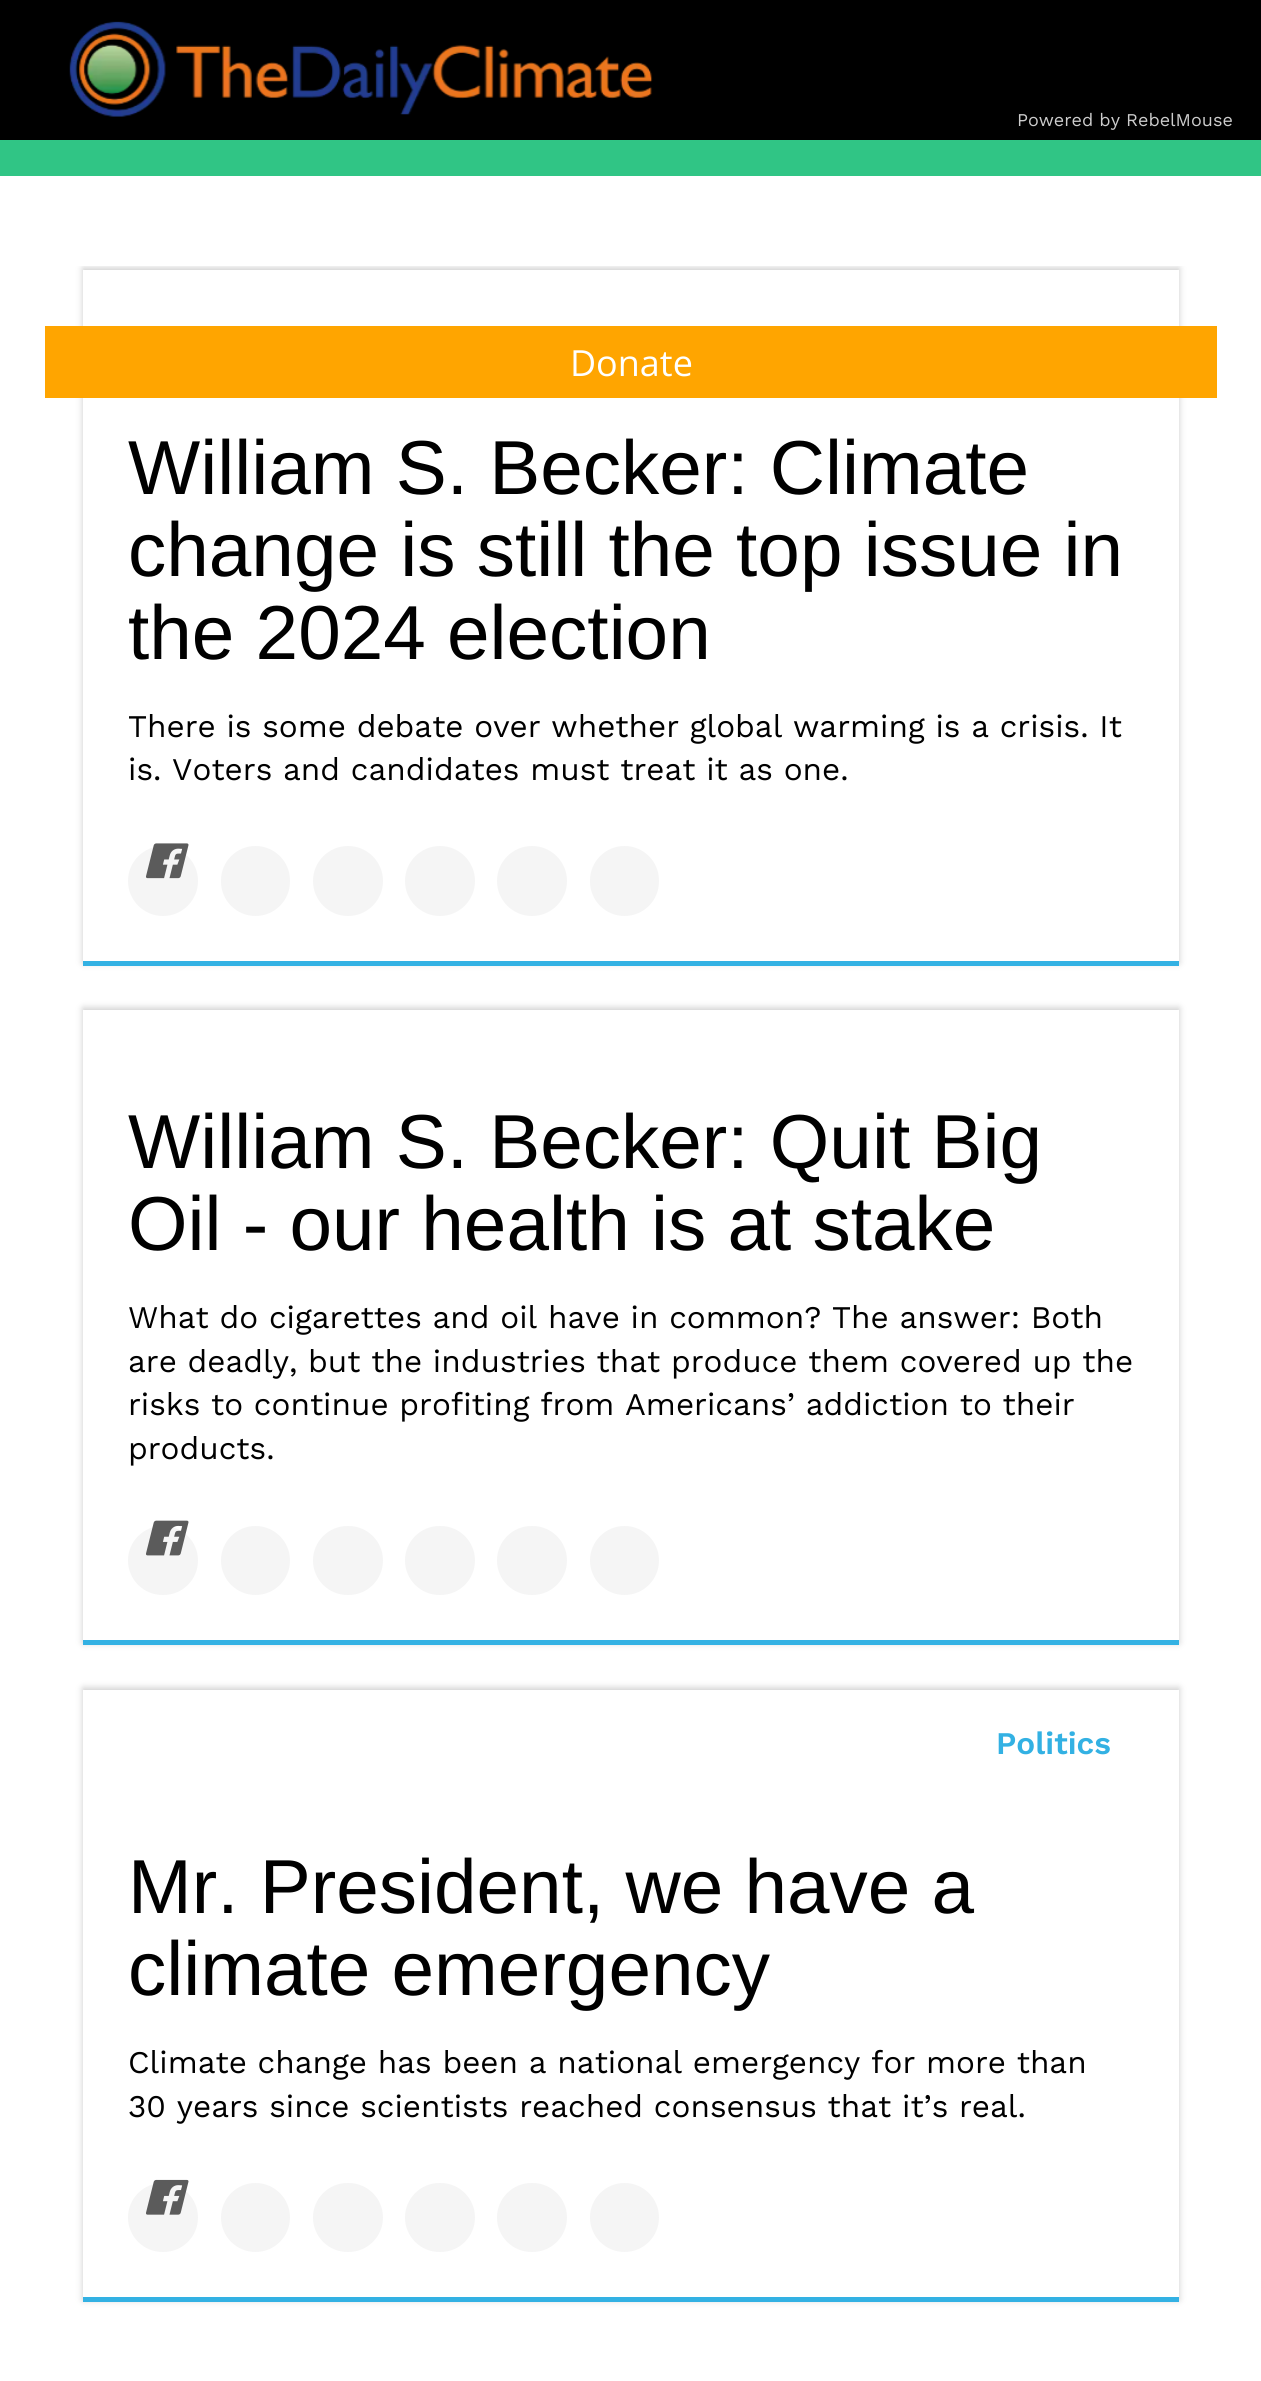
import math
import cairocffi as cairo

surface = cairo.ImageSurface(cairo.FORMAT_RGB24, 1261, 2381)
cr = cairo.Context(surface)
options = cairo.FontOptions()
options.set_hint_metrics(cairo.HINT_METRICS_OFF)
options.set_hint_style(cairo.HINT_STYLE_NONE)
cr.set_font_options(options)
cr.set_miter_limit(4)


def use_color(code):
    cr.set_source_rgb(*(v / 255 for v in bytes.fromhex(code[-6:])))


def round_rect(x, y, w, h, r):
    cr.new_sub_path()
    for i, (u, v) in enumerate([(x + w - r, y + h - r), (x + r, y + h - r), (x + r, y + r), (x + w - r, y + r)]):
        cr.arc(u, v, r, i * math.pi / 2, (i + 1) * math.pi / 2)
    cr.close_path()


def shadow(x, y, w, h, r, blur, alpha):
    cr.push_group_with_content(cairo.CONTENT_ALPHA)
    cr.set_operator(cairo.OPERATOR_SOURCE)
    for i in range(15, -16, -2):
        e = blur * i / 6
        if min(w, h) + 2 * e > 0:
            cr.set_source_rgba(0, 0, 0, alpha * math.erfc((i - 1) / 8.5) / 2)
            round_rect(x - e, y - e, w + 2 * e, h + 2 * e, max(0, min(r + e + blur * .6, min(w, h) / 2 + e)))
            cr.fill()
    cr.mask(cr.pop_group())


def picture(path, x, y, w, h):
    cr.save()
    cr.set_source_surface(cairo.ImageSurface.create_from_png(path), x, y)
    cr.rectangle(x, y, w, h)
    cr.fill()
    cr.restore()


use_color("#ffffff")
cr.paint()
use_color("#000000")
cr.rectangle(0, 0, 1261, 140)
cr.fill()
picture("img1.png", 69, 21, 584, 96)
cr.select_font_face("Work Sans")
cr.set_font_size(18)
use_color("#cccccc")
cr.move_to(1017, 126)
cr.show_text("Powered by RebelMouse")
cr.save()
cr.rectangle(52, 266, 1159, 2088)
cr.clip()
use_color("#cccccc")
shadow(83, 268, 1096, 695, 0, 3.5, 1)
cr.restore()
use_color("#ffffff")
cr.rectangle(83, 270, 1096, 691)
cr.fill()
use_color("#ffa500")
cr.rectangle(45, 326, 1172, 72)
cr.fill()
cr.select_font_face("Open Sans")
cr.set_font_size(36)
use_color("#ffffff")
cr.move_to(570, 376)
cr.show_text("Donate")
use_color("#30c585")
cr.rectangle(0, 140, 1261, 36)
cr.fill()
use_color("#33b1e3")
cr.rectangle(83, 961, 1096, 5)
cr.fill()
cr.select_font_face("Liberation Sans")
cr.set_font_size(76.5)
use_color("#000000")
cr.move_to(128, 494)
cr.show_text("William S. Becker: Climate")
cr.move_to(128, 576)
cr.show_text("change is still the top issue in")
cr.move_to(128, 659)
cr.show_text("the 2024 election")
cr.select_font_face("Work Sans")
cr.set_font_size(31.5)
cr.move_to(128, 737)
cr.show_text("There is some debate over whether global warming is a crisis. It")
cr.move_to(128, 780)
cr.show_text("is. Voters and candidates must treat it as one.")
use_color("#f5f5f5")
cr.new_path()
cr.arc(163, 881, 35, 0, 2 * math.pi)
cr.fill()
picture("img2.png", 146, 843, 43, 36)
round_rect(221, 846, 69, 70, 34.5)
cr.fill()
cr.arc(348, 881, 35, 0, 2 * math.pi)
cr.fill()
cr.arc(440, 881, 35, 0, 2 * math.pi)
cr.fill()
cr.arc(532, 881, 35, 0, 2 * math.pi)
cr.fill()
round_rect(590, 846, 69, 70, 34.5)
cr.fill()
use_color("#cccccc")
shadow(83, 1008, 1096, 635, 0, 3.5, 1)
use_color("#ffffff")
cr.rectangle(83, 1010, 1096, 630)
cr.fill()
use_color("#33b1e3")
cr.rectangle(83, 1640, 1096, 5)
cr.fill()
cr.select_font_face("Liberation Sans")
cr.set_font_size(76.5)
use_color("#000000")
cr.move_to(128, 1168)
cr.show_text("William S. Becker: Quit Big")
cr.move_to(128, 1250)
cr.show_text("Oil - our health is at stake")
cr.select_font_face("Work Sans")
cr.set_font_size(31.5)
cr.move_to(128, 1328)
cr.show_text("What do cigarettes and oil have in common? The answer: Both")
cr.move_to(128, 1372)
cr.show_text("are deadly, but the industries that produce them covered up the")
cr.move_to(128, 1415)
cr.show_text("risks to continue profiting from Americans’ addiction to their")
cr.move_to(128, 1459)
cr.show_text("products.")
use_color("#f5f5f5")
round_rect(128, 1526, 70, 69, 34.5)
cr.fill()
picture("img3.png", 146, 1520, 43, 36)
cr.arc(255.5, 1560.5, 34.5, 0, 2 * math.pi)
cr.fill()
round_rect(313, 1526, 70, 69, 34.5)
cr.fill()
round_rect(405, 1526, 70, 69, 34.5)
cr.fill()
round_rect(497, 1526, 70, 69, 34.5)
cr.fill()
cr.arc(624.5, 1560.5, 34.5, 0, 2 * math.pi)
cr.fill()
use_color("#cccccc")
shadow(83, 1688, 1096, 612, 0, 3.5, 1)
use_color("#ffffff")
cr.rectangle(83, 1690, 1096, 607)
cr.fill()
use_color("#33b1e3")
cr.rectangle(83, 2297, 1096, 5)
cr.fill()
cr.select_font_face("Work Sans SemiBold")
cr.move_to(996, 1754)
cr.show_text("Politics")
cr.select_font_face("Liberation Sans")
cr.set_font_size(76.5)
use_color("#000000")
cr.move_to(128, 1913)
cr.show_text("Mr. President, we have a")
cr.move_to(128, 1995)
cr.show_text("climate emergency")
cr.select_font_face("Work Sans")
cr.set_font_size(31.5)
cr.move_to(128, 2073)
cr.show_text("Climate change has been a national emergency for more than")
cr.move_to(128, 2117)
cr.show_text("30 years since scientists reached consensus that it’s real.")
use_color("#f5f5f5")
round_rect(128, 2183, 70, 69, 34.5)
cr.fill()
picture("img4.png", 146, 2179, 43, 36)
cr.arc(255.5, 2217.5, 34.5, 0, 2 * math.pi)
cr.fill()
round_rect(313, 2183, 70, 69, 34.5)
cr.fill()
round_rect(405, 2183, 70, 69, 34.5)
cr.fill()
round_rect(497, 2183, 70, 69, 34.5)
cr.fill()
cr.arc(624.5, 2217.5, 34.5, 0, 2 * math.pi)
cr.fill()
surface.write_to_png("result.png")
